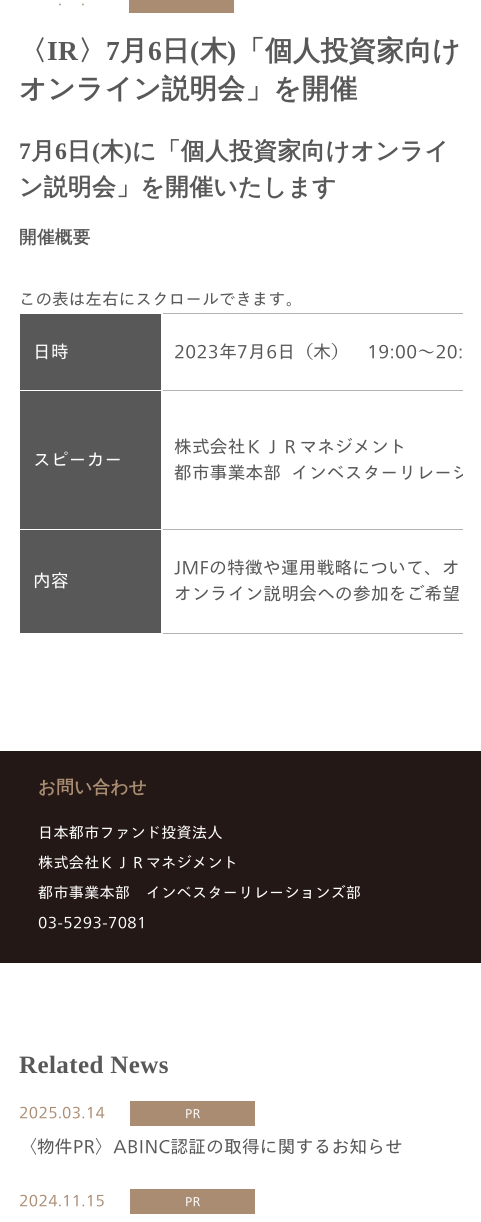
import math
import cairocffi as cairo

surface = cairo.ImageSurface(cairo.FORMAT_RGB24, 481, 1222)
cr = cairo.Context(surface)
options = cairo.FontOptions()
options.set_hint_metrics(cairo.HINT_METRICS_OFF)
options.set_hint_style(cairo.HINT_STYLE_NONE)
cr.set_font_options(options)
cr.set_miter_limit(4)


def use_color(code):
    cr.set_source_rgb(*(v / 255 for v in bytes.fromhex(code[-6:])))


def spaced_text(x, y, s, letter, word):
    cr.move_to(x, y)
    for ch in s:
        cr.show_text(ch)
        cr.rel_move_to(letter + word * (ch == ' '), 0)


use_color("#ffffff")
cr.paint()
cr.select_font_face("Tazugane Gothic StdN")
cr.set_font_size(15)
use_color("#aa8c73")
spaced_text(58, 5, ".", 0.4, 0)
spaced_text(81, 5, ".", 0.4, 0)
cr.rectangle(129, 0, 105, 13)
cr.fill()
cr.select_font_face("WenQuanYi Zen Hei", cairo.FONT_SLANT_NORMAL, cairo.FONT_WEIGHT_BOLD)
cr.set_font_size(27.5)
use_color("#595858")
spaced_text(19, 60, "〈", 0.4, 0)
cr.select_font_face("Liberation Serif", cairo.FONT_SLANT_NORMAL, cairo.FONT_WEIGHT_BOLD)
spaced_text(47, 60, "IR", 0.4, 0)
cr.select_font_face("WenQuanYi Zen Hei", cairo.FONT_SLANT_NORMAL, cairo.FONT_WEIGHT_BOLD)
spaced_text(78, 60, "〉", 0.4, 0)
cr.select_font_face("Liberation Serif", cairo.FONT_SLANT_NORMAL, cairo.FONT_WEIGHT_BOLD)
spaced_text(106, 60, "7", 0.4, 0)
cr.select_font_face("WenQuanYi Zen Hei", cairo.FONT_SLANT_NORMAL, cairo.FONT_WEIGHT_BOLD)
spaced_text(120, 60, "月", 0.4, 0)
cr.select_font_face("Liberation Serif", cairo.FONT_SLANT_NORMAL, cairo.FONT_WEIGHT_BOLD)
spaced_text(148, 60, "6", 0.4, 0)
cr.select_font_face("WenQuanYi Zen Hei", cairo.FONT_SLANT_NORMAL, cairo.FONT_WEIGHT_BOLD)
spaced_text(162, 60, "日", 0.4, 0)
cr.select_font_face("Liberation Serif", cairo.FONT_SLANT_NORMAL, cairo.FONT_WEIGHT_BOLD)
spaced_text(190, 60, "(", 0.4, 0)
cr.select_font_face("WenQuanYi Zen Hei", cairo.FONT_SLANT_NORMAL, cairo.FONT_WEIGHT_BOLD)
spaced_text(200, 60, "木", 0.4, 0)
cr.select_font_face("Liberation Serif", cairo.FONT_SLANT_NORMAL, cairo.FONT_WEIGHT_BOLD)
spaced_text(227, 60, ")", 0.4, 0)
cr.select_font_face("WenQuanYi Zen Hei", cairo.FONT_SLANT_NORMAL, cairo.FONT_WEIGHT_BOLD)
spaced_text(237, 60, "「個人投資家向け", 0.4, 0)
spaced_text(19, 98, "オンライン説明会」を開催", 0.4, 0)
cr.select_font_face("Liberation Serif", cairo.FONT_SLANT_NORMAL, cairo.FONT_WEIGHT_BOLD)
cr.set_font_size(23.75)
spaced_text(19, 159, "7", 0.4, 0)
cr.select_font_face("WenQuanYi Zen Hei", cairo.FONT_SLANT_NORMAL, cairo.FONT_WEIGHT_BOLD)
spaced_text(31, 159, "月", 0.4, 0)
cr.select_font_face("Liberation Serif", cairo.FONT_SLANT_NORMAL, cairo.FONT_WEIGHT_BOLD)
spaced_text(55, 159, "6", 0.4, 0)
cr.select_font_face("WenQuanYi Zen Hei", cairo.FONT_SLANT_NORMAL, cairo.FONT_WEIGHT_BOLD)
spaced_text(67, 159, "日", 0.4, 0)
cr.select_font_face("Liberation Serif", cairo.FONT_SLANT_NORMAL, cairo.FONT_WEIGHT_BOLD)
spaced_text(92, 159, "(", 0.4, 0)
cr.select_font_face("WenQuanYi Zen Hei", cairo.FONT_SLANT_NORMAL, cairo.FONT_WEIGHT_BOLD)
spaced_text(100, 159, "木", 0.4, 0)
cr.select_font_face("Liberation Serif", cairo.FONT_SLANT_NORMAL, cairo.FONT_WEIGHT_BOLD)
spaced_text(124, 159, ")", 0.4, 0)
cr.select_font_face("WenQuanYi Zen Hei", cairo.FONT_SLANT_NORMAL, cairo.FONT_WEIGHT_BOLD)
spaced_text(132, 159, "に「個人投資家向けオンライ", 0.4, 0)
spaced_text(19, 195, "ン説明会」を開催いたします", 0.4, 0)
cr.set_font_size(17.5)
spaced_text(19, 243, "開催概要", 0.4, 0)
cr.select_font_face("Tazugane Gothic StdN")
cr.set_font_size(16.25)
spaced_text(19, 305, "この表は左右にスクロールできます。", 0.4, 0)
cr.rectangle(20, 314, 141, 76)
cr.fill()
use_color("#b3b3b4")
cr.rectangle(161, 313, 302, 1)
cr.fill()
use_color("#ffffff")
cr.rectangle(161, 313, 2, 1)
cr.fill()
use_color("#b3b3b4")
cr.rectangle(161, 390, 302, 1)
cr.fill()
use_color("#ffffff")
cr.rectangle(161, 390, 2, 1)
cr.fill()
cr.set_font_size(17.5)
spaced_text(33, 358, "日時", 0.4, 0)
use_color("#595858")
spaced_text(174, 358, "2023年7月6日（木）　19:00～20:", 0.4, 0)
cr.rectangle(20, 391, 141, 138)
cr.fill()
use_color("#b3b3b4")
cr.rectangle(161, 529, 302, 1)
cr.fill()
use_color("#ffffff")
cr.rectangle(161, 529, 2, 1)
cr.fill()
spaced_text(33, 466, "スピーカー", 0.4, 0)
use_color("#595858")
spaced_text(174, 453, "株式会社ＫＪＲマネジメント", 0.4, 0)
cr.save()
cr.rectangle(19, 313, 444, 351)
cr.clip()
spaced_text(174, 479, "都市事業本部  インベスターリレーシ", 0.4, 0)
cr.restore()
cr.rectangle(20, 530, 141, 103)
cr.fill()
use_color("#b3b3b4")
cr.rectangle(161, 633, 302, 1)
cr.fill()
use_color("#ffffff")
cr.rectangle(161, 633, 2, 1)
cr.fill()
spaced_text(33, 587, "内容", 0.4, 0)
use_color("#595858")
spaced_text(174, 574, "JMFの特徴や運用戦略について、オ", 0.4, 0)
spaced_text(174, 600, "オンライン説明会への参加をご希望", 0.4, 0)
use_color("#231815")
cr.rectangle(0, 751, 481, 212)
cr.fill()
cr.select_font_face("WenQuanYi Zen Hei", cairo.FONT_SLANT_NORMAL, cairo.FONT_WEIGHT_BOLD)
use_color("#aa8c73")
spaced_text(38, 793, "お問い合わせ", 0.4, 0)
cr.select_font_face("Tazugane Gothic StdN")
cr.set_font_size(15)
use_color("#ffffff")
spaced_text(38, 838, "日本都市ファンド投資法人", 0.4, 0)
spaced_text(38, 868, "株式会社ＫＪＲマネジメント", 0.4, 0)
spaced_text(38, 898, "都市事業本部　インベスターリレーションズ部", 0.4, 0)
spaced_text(38, 928, "03-5293-7081", 0.4, 0)
cr.select_font_face("Liberation Serif", cairo.FONT_SLANT_NORMAL, cairo.FONT_WEIGHT_BOLD)
cr.set_font_size(25)
use_color("#595858")
spaced_text(19, 1073, "Related News", 0.4, 0)
cr.select_font_face("Tazugane Gothic StdN")
cr.set_font_size(15)
use_color("#aa8c73")
spaced_text(19, 1118, "2025.03.14", 0.4, 0)
cr.rectangle(130, 1101, 125, 25)
cr.fill()
cr.set_font_size(12)
use_color("#ffffff")
spaced_text(185, 1118, "PR", 0.4, 0)
cr.set_font_size(17.5)
use_color("#595858")
spaced_text(19, 1153, "〈物件PR〉ABINC認証の取得に関するお知らせ", 0.4, 0)
cr.set_font_size(15)
use_color("#aa8c73")
spaced_text(19, 1206, "2024.11.15", 0.4, 0)
cr.rectangle(130, 1189, 125, 25)
cr.fill()
cr.set_font_size(12)
use_color("#ffffff")
spaced_text(185, 1206, "PR", 0.4, 0)
surface.write_to_png("result.png")
